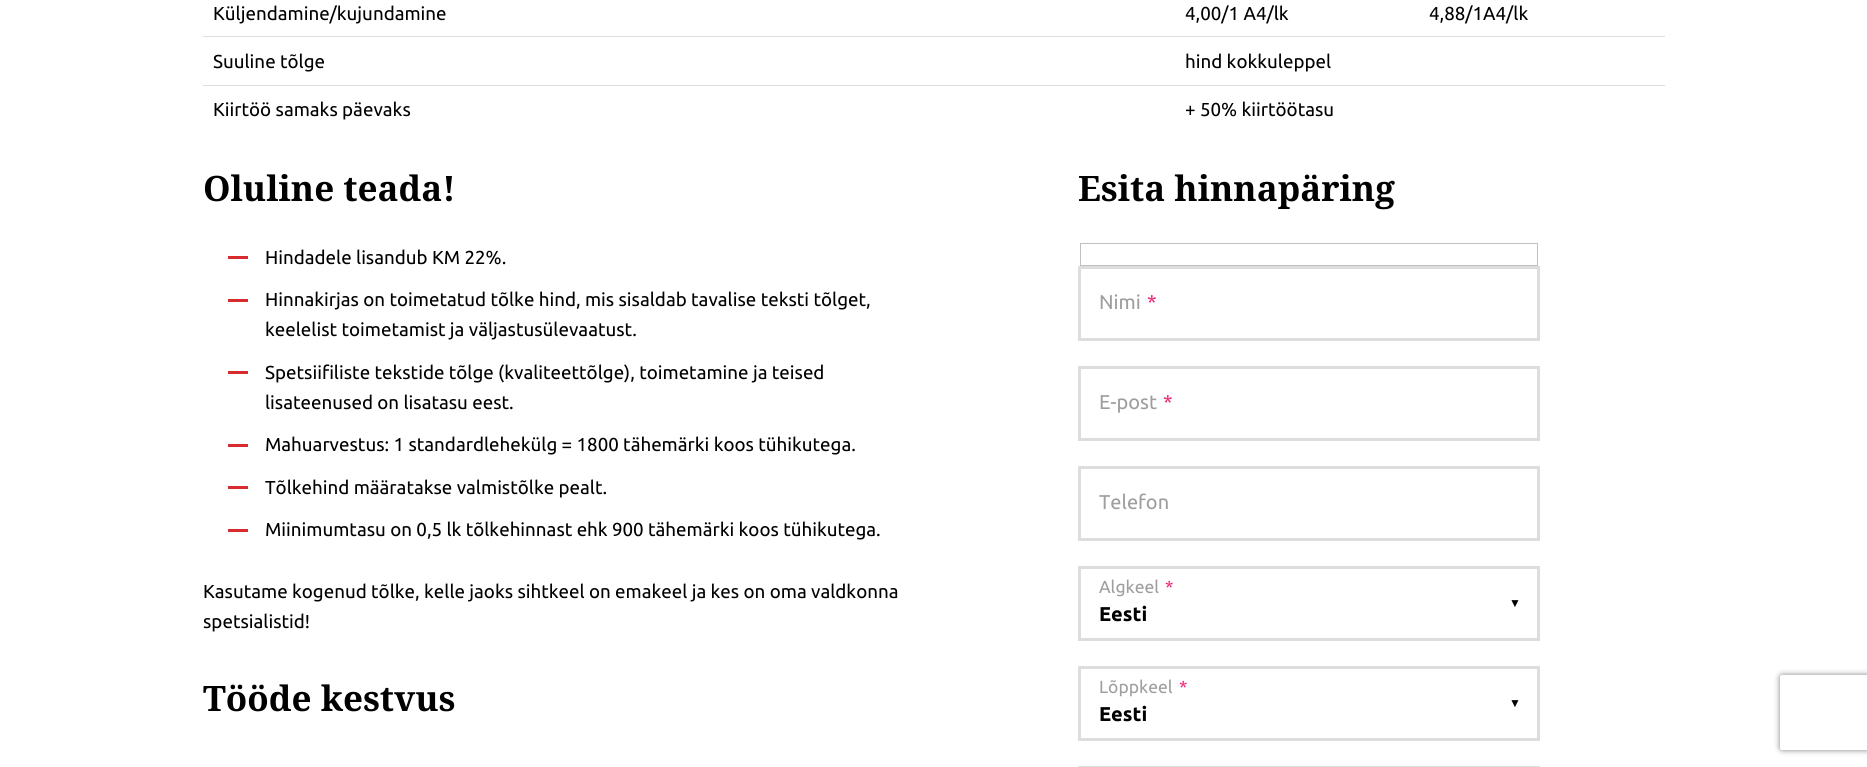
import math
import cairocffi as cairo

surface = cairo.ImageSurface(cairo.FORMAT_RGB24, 1867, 767)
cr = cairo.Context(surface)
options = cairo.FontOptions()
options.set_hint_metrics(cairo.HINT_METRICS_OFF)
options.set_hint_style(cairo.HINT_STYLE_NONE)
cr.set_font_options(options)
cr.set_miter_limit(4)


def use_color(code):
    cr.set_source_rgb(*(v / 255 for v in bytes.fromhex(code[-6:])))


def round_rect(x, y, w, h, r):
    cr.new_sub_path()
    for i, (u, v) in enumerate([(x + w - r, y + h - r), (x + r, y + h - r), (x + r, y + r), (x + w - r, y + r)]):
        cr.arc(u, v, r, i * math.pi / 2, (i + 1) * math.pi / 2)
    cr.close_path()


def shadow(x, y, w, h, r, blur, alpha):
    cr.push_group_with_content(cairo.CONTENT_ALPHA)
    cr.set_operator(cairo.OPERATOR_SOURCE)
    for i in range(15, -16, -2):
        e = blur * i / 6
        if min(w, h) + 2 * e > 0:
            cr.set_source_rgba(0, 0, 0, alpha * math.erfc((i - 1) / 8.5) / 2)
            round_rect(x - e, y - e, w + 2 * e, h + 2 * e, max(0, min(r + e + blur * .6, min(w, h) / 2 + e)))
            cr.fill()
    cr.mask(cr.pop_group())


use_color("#ffffff")
cr.paint()
cr.select_font_face("Ubuntu")
cr.set_font_size(18.75)
use_color("#000000")
cr.move_to(213, 20)
cr.show_text("Küljendamine/kujundamine")
cr.move_to(1185, 20)
cr.show_text("4,00/1 A4/lk")
cr.move_to(1429, 20)
cr.show_text("4,88/1A4/lk")
use_color("#dddddd")
cr.rectangle(203, 36, 1462, 1)
cr.fill()
use_color("#000000")
cr.move_to(213, 68)
cr.show_text("Suuline tõlge")
cr.move_to(1185, 68)
cr.show_text("hind kokkuleppel")
use_color("#dddddd")
cr.rectangle(203, 85, 1462, 1)
cr.fill()
use_color("#000000")
cr.move_to(213, 116)
cr.show_text("Kiirtöö samaks päevaks")
cr.move_to(1185, 116)
cr.show_text("+ 50% kiirtöötasu")
cr.select_font_face("Noto Serif", cairo.FONT_SLANT_NORMAL, cairo.FONT_WEIGHT_BOLD)
cr.set_font_size(35)
cr.move_to(203, 201)
cr.show_text("Oluline teada!")
use_color("#da2c2c")
cr.rectangle(228, 256, 20, 3)
cr.fill()
cr.select_font_face("Ubuntu")
cr.set_font_size(18.75)
use_color("#000000")
cr.move_to(265, 264)
cr.show_text("Hindadele lisandub KM 22%.")
use_color("#da2c2c")
cr.rectangle(228, 299, 20, 3)
cr.fill()
use_color("#000000")
cr.move_to(265, 306)
cr.show_text("Hinnakirjas on toimetatud tõlke hind, mis sisaldab tavalise teksti tõlget,")
cr.move_to(265, 336)
cr.show_text("keelelist toimetamist ja väljastusülevaatust.")
use_color("#da2c2c")
cr.rectangle(228, 371, 20, 3)
cr.fill()
use_color("#000000")
cr.move_to(265, 379)
cr.show_text("Spetsiifiliste tekstide tõlge (kvaliteettõlge), toimetamine ja teised")
cr.move_to(265, 409)
cr.show_text("lisateenused on lisatasu eest.")
use_color("#da2c2c")
cr.rectangle(228, 444, 20, 3)
cr.fill()
use_color("#000000")
cr.move_to(265, 451)
cr.show_text("Mahuarvestus: 1 standardlehekülg = 1800 tähemärki koos tühikutega.")
use_color("#da2c2c")
cr.rectangle(228, 486, 20, 3)
cr.fill()
use_color("#000000")
cr.move_to(265, 494)
cr.show_text("Tõlkehind määratakse valmistõlke pealt.")
use_color("#da2c2c")
cr.rectangle(228, 529, 20, 3)
cr.fill()
use_color("#000000")
cr.move_to(265, 536)
cr.show_text("Miinimumtasu on 0,5 lk tõlkehinnast ehk 900 tähemärki koos tühikutega.")
cr.move_to(203, 598)
cr.show_text("Kasutame kogenud tõlke, kelle jaoks sihtkeel on emakeel ja kes on oma valdkonna")
cr.move_to(203, 628)
cr.show_text("spetsialistid!")
cr.select_font_face("Noto Serif", cairo.FONT_SLANT_NORMAL, cairo.FONT_WEIGHT_BOLD)
cr.set_font_size(35)
cr.move_to(203, 711)
cr.show_text("Tööde kestvus")
cr.move_to(1078, 201)
cr.show_text("Esita hinnapäring")
cr.rectangle(1080.5, 243.5, 457, 22)
use_color("#c0c0c0")
cr.set_line_width(1)
cr.stroke()
cr.rectangle(1079.5, 267.5, 459, 72)
use_color("#dddddd")
cr.set_line_width(3)
cr.stroke()
cr.select_font_face("Ubuntu")
cr.set_font_size(20)
use_color("#9e9e9e")
cr.move_to(1099, 309)
cr.show_text("Nimi")
use_color("#ee2375")
cr.move_to(1147, 309)
cr.show_text("*")
cr.rectangle(1079.5, 367.5, 459, 72)
use_color("#dddddd")
cr.stroke()
use_color("#9e9e9e")
cr.move_to(1099, 409)
cr.show_text("E-post")
use_color("#ee2375")
cr.move_to(1163, 409)
cr.show_text("*")
cr.rectangle(1079.5, 467.5, 459, 72)
use_color("#dddddd")
cr.stroke()
use_color("#9e9e9e")
cr.move_to(1099, 509)
cr.show_text("Telefon")
cr.rectangle(1079.5, 567.5, 459, 72)
use_color("#dddddd")
cr.stroke()
cr.set_font_size(17.5)
use_color("#9e9e9e")
cr.move_to(1099, 593)
cr.show_text("Algkeel")
use_color("#ee2375")
cr.move_to(1165, 593)
cr.show_text("*")
cr.select_font_face("Liberation Sans")
cr.set_font_size(12)
use_color("#000000")
cr.move_to(1509, 607)
cr.show_text("▼")
cr.select_font_face("Ubuntu", cairo.FONT_SLANT_NORMAL, cairo.FONT_WEIGHT_BOLD)
cr.set_font_size(20)
cr.move_to(1099, 621)
cr.show_text("Eesti")
cr.rectangle(1079.5, 667.5, 459, 72)
use_color("#dddddd")
cr.stroke()
cr.select_font_face("Ubuntu")
cr.set_font_size(17.5)
use_color("#9e9e9e")
cr.move_to(1099, 693)
cr.show_text("Lõppkeel")
use_color("#ee2375")
cr.move_to(1179, 693)
cr.show_text("*")
cr.select_font_face("Liberation Sans")
cr.set_font_size(12)
use_color("#000000")
cr.move_to(1509, 707)
cr.show_text("▼")
cr.select_font_face("Ubuntu", cairo.FONT_SLANT_NORMAL, cairo.FONT_WEIGHT_BOLD)
cr.set_font_size(20)
cr.move_to(1099, 721)
cr.show_text("Eesti")
cr.rectangle(1079.5, 767.5, 459, 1)
use_color("#dddddd")
cr.stroke()
cr.save()
cr.set_fill_rule(cairo.FILL_RULE_EVEN_ODD)
cr.new_path()
cr.move_to(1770, 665)
cr.line_to(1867, 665)
cr.line_to(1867, 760)
cr.line_to(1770, 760)
cr.close_path()
cr.move_to(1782.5, 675)
cr.line_to(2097.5, 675)
cr.curve_to(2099, 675, 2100, 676, 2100, 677.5)
cr.line_to(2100, 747.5)
cr.curve_to(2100, 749, 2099, 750, 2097.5, 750)
cr.line_to(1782.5, 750)
cr.curve_to(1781, 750, 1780, 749, 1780, 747.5)
cr.line_to(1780, 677.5)
cr.curve_to(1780, 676, 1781, 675, 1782.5, 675)
cr.close_path()
cr.clip()
use_color("#808080")
shadow(1780, 675, 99, 75, 2.5, 3, 1)
cr.restore()
surface.write_to_png("result.png")
